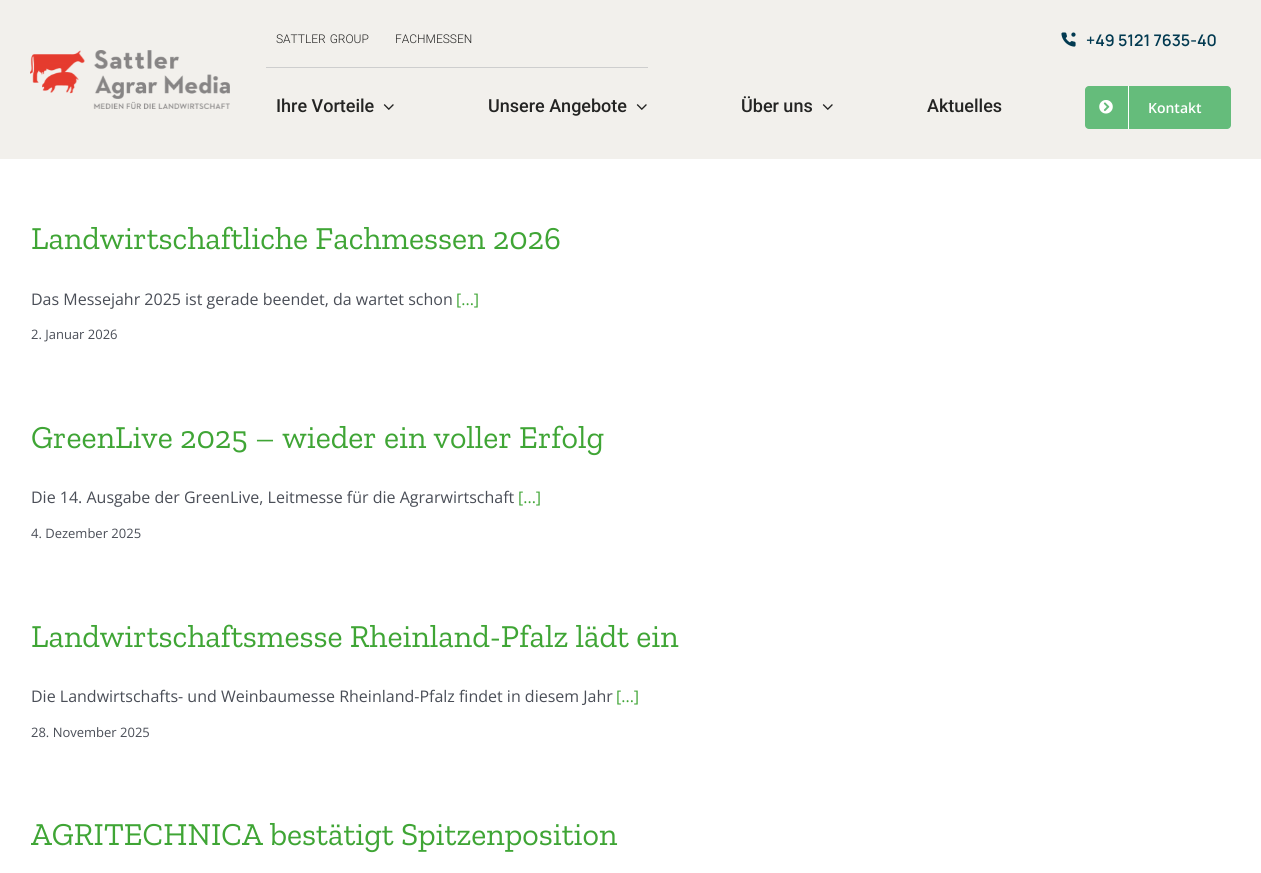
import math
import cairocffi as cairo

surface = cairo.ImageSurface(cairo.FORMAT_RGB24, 1261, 873)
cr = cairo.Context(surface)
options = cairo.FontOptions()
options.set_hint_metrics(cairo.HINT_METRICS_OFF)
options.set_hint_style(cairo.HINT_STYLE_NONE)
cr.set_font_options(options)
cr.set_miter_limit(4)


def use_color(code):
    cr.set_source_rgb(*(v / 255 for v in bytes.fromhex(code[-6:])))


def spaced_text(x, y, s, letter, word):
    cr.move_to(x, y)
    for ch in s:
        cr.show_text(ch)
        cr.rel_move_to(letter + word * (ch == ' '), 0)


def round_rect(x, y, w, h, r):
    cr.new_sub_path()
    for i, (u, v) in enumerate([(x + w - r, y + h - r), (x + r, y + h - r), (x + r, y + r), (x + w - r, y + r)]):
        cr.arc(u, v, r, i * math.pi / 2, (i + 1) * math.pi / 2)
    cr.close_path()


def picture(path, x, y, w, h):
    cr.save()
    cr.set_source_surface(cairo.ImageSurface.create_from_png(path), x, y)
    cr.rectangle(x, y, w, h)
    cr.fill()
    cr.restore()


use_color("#ffffff")
cr.paint()
use_color("#f2f0ec")
cr.rectangle(0, 0, 1261, 159)
cr.fill()
picture("img1.png", 30, 50, 200, 59)
use_color("#cecece")
cr.rectangle(266, 67, 382, 1)
cr.fill()
cr.select_font_face("Roboto Light")
cr.set_font_size(12)
use_color("#242423")
spaced_text(276, 43, "SATTLER GROUP", 0, 1)
cr.move_to(395, 43)
cr.show_text("FACHMESSEN")
picture("img2.png", 1061, 32, 15, 15)
cr.select_font_face("Manrope SemiBold")
cr.set_font_size(16)
use_color("#023a51")
cr.move_to(1086, 46)
cr.show_text("+49 5121 7635-40")
cr.select_font_face("Roboto Medium")
cr.set_font_size(18)
use_color("#242423")
cr.move_to(276, 112)
cr.show_text("Ihre Vorteile")
picture("img3.png", 383, 104, 11, 6)
cr.move_to(488, 112)
cr.show_text("Unsere Angebote")
picture("img3.png", 636, 104, 11, 6)
cr.move_to(741, 112)
cr.show_text("Über uns")
picture("img3.png", 822, 104, 11, 6)
cr.move_to(927, 112)
cr.show_text("Aktuelles")
use_color("#65bc7b")
round_rect(1085, 86, 146, 43, 4)
cr.fill()
use_color("#ffffff")
cr.rectangle(1128, 86, 1, 43)
cr.fill()
picture("img4.png", 1099, 100, 14, 14)
cr.select_font_face("Open Sans SemiBold")
cr.set_font_size(14)
cr.move_to(1148, 113)
cr.show_text("Kontakt")
cr.select_font_face("Zilla Slab")
cr.set_font_size(32)
use_color("#3fa535")
cr.move_to(31, 249)
cr.show_text("Landwirtschaftliche Fachmessen 2026")
cr.select_font_face("Open Sans")
cr.set_font_size(16)
use_color("#4a4e57")
cr.move_to(31, 305)
cr.show_text("Das Messejahr 2025 ist gerade beendet, da wartet schon")
use_color("#3fa535")
cr.move_to(456, 305)
cr.show_text("[...]")
cr.set_font_size(13)
use_color("#4a4e57")
cr.move_to(31, 339)
cr.show_text("2. Januar 2026")
cr.select_font_face("Zilla Slab")
cr.set_font_size(32)
use_color("#3fa535")
cr.move_to(31, 448)
cr.show_text("GreenLive 2025 – wieder ein voller Erfolg")
cr.select_font_face("Open Sans")
cr.set_font_size(16)
use_color("#4a4e57")
cr.move_to(31, 503)
cr.show_text("Die 14. Ausgabe der GreenLive, Leitmesse für die Agrarwirtschaft")
use_color("#3fa535")
cr.move_to(518, 503)
cr.show_text("[...]")
cr.set_font_size(13)
use_color("#4a4e57")
cr.move_to(31, 538)
cr.show_text("4. Dezember 2025")
cr.select_font_face("Zilla Slab")
cr.set_font_size(32)
use_color("#3fa535")
cr.move_to(31, 647)
cr.show_text("Landwirtschaftsmesse Rheinland-Pfalz lädt ein")
cr.select_font_face("Open Sans")
cr.set_font_size(16)
use_color("#4a4e57")
cr.move_to(31, 702)
cr.show_text("Die Landwirtschafts- und Weinbaumesse Rheinland-Pfalz findet in diesem Jahr")
use_color("#3fa535")
cr.move_to(616, 702)
cr.show_text("[...]")
cr.set_font_size(13)
use_color("#4a4e57")
cr.move_to(31, 737)
cr.show_text("28. November 2025")
cr.select_font_face("Zilla Slab")
cr.set_font_size(32)
use_color("#3fa535")
cr.move_to(31, 845)
cr.show_text("AGRITECHNICA bestätigt Spitzenposition")
surface.write_to_png("result.png")
